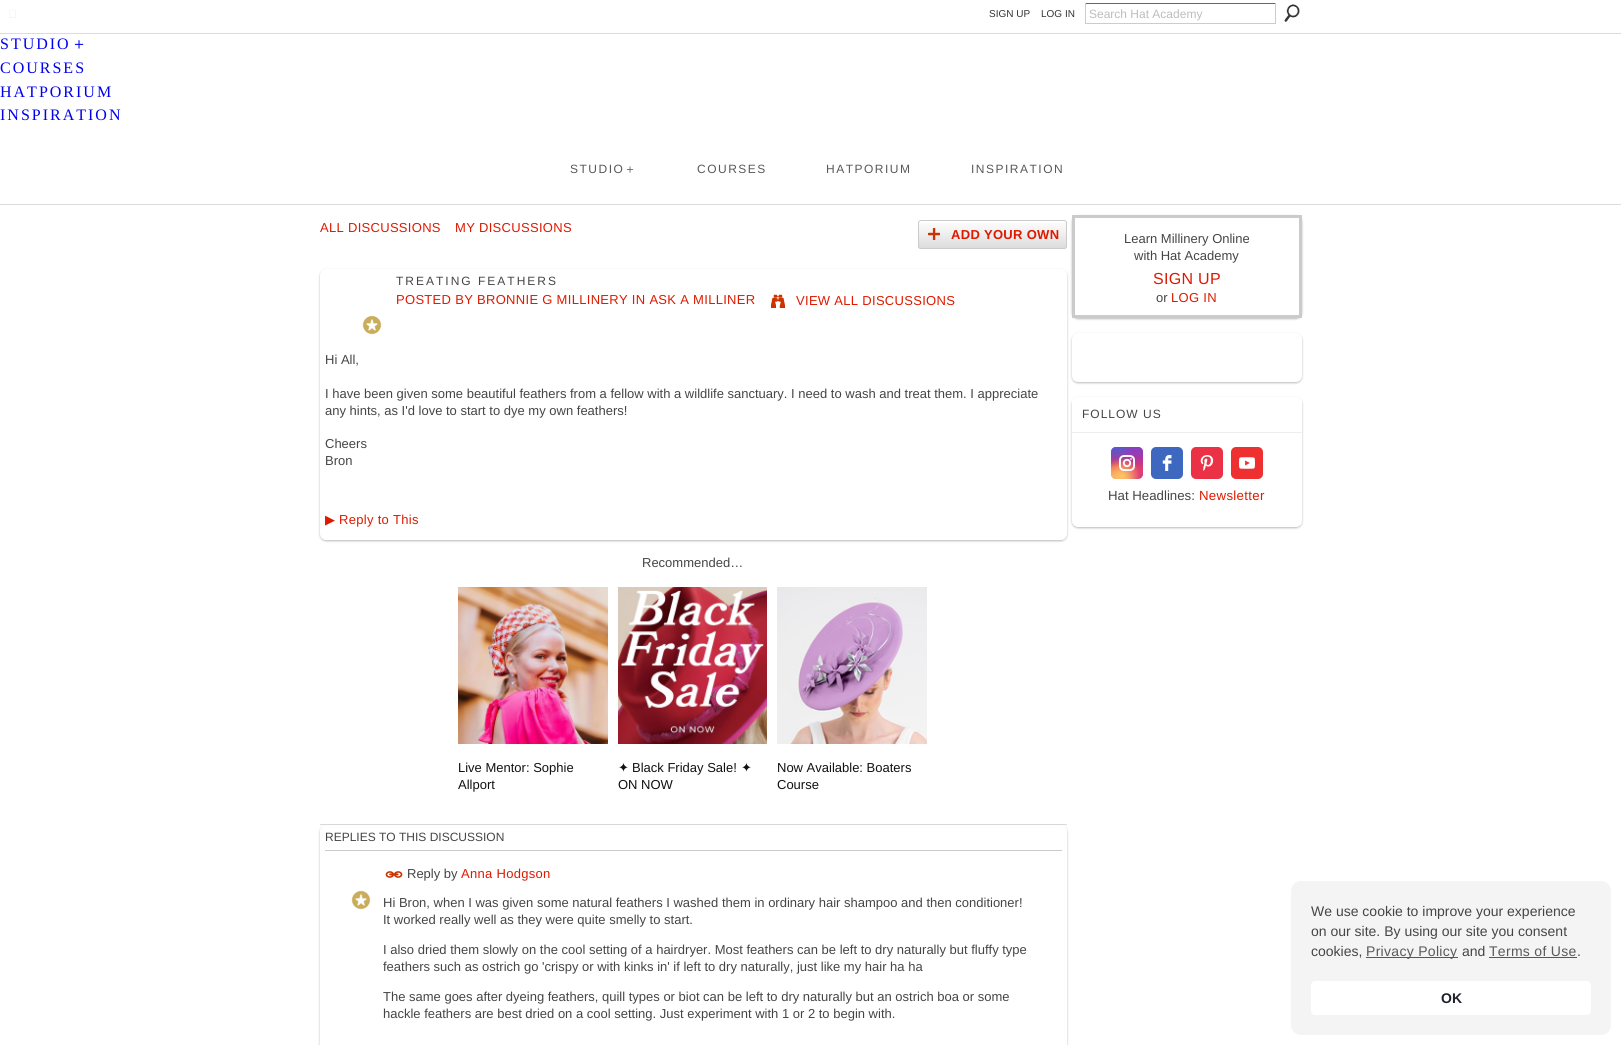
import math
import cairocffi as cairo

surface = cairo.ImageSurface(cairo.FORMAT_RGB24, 1621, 1045)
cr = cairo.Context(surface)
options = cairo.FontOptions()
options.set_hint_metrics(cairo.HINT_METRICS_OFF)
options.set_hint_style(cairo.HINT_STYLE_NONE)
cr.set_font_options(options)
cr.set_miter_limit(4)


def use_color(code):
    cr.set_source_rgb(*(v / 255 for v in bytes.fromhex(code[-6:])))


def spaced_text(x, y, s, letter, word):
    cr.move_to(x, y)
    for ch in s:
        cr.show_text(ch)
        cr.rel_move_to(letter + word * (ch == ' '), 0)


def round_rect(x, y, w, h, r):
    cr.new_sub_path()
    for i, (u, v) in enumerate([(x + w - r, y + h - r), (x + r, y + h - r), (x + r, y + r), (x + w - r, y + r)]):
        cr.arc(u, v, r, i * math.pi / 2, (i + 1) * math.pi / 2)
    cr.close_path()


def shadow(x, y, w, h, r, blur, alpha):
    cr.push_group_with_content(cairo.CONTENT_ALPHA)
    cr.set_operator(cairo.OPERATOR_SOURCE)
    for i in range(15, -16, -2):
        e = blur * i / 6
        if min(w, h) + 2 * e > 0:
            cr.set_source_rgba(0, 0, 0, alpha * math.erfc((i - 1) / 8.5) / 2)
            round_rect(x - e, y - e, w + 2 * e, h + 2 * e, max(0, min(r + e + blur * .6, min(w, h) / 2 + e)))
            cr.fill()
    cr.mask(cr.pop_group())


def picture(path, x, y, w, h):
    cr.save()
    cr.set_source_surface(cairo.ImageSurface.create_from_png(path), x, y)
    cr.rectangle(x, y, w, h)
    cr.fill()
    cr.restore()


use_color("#ffffff")
cr.paint()
picture("img1.png", 9, 9, 7, 9)
cr.select_font_face("Liberation Sans")
cr.set_font_size(10)
use_color("#333333")
cr.move_to(989, 17)
cr.show_text("SIGN UP")
cr.move_to(1041, 17)
cr.show_text("LOG IN")
use_color("#666666")
cr.rectangle(1085, 3, 191, 1)
cr.fill()
use_color("#cccccc")
cr.rectangle(1275, 3, 1, 21)
cr.fill()
cr.rectangle(1085, 23, 191, 1)
cr.fill()
cr.rectangle(1085, 3, 1, 21)
cr.fill()
cr.set_font_size(12)
use_color("#bdbdbd")
cr.move_to(1089, 18)
cr.show_text("Search Hat Academy")
picture("img2.png", 1284, 4, 16, 18)
use_color("#dbdbdb")
cr.rectangle(0, 33, 1621, 1)
cr.fill()
cr.select_font_face("Liberation Serif")
cr.set_font_size(16)
use_color("#0000ee")
spaced_text(0, 49, "STUDIO", 2, 0)
cr.select_font_face("WenQuanYi Zen Hei Medium")
spaced_text(71, 49, "＋", 2, 0)
cr.select_font_face("Liberation Serif")
spaced_text(0, 73, "COURSES", 2, 0)
spaced_text(0, 97, "HATPORIUM", 2, 0)
spaced_text(0, 120, "INSPIRATION", 2, 0)
cr.select_font_face("Liberation Sans")
cr.set_font_size(12)
use_color("#595959")
spaced_text(570, 173, "STUDIO", 1.5, 0)
cr.select_font_face("WenQuanYi Zen Hei Medium")
spaced_text(624, 173, "＋", 1.5, 0)
cr.select_font_face("Liberation Sans")
spaced_text(697, 173, "COURSES", 1.5, 0)
spaced_text(826, 173, "HATPORIUM", 1.5, 0)
spaced_text(971, 173, "INSPIRATION", 1.5, 0)
use_color("#dbdbdb")
cr.rectangle(0, 204, 1621, 1)
cr.fill()
cr.set_font_size(13)
use_color("#dd1a00")
spaced_text(320, 232, "ALL DISCUSSIONS", 0.3, 0)
spaced_text(455, 232, "MY DISCUSSIONS", 0.3, 0)
picture("img3.png", 918, 223, 149, 26)
round_rect(918.5, 220.5, 148, 28, 2.5)
use_color("#cbcbcb")
cr.set_line_width(1)
cr.stroke()
picture("img4.png", 928, 228, 12, 12)
cr.select_font_face("Liberation Sans", cairo.FONT_SLANT_NORMAL, cairo.FONT_WEIGHT_BOLD)
use_color("#dd1a00")
spaced_text(951, 239, "ADD YOUR OWN", 0.3, 0)
use_color("#bbbbbb")
shadow(320, 270, 747, 271, 6, 1, 1)
use_color("#ffffff")
round_rect(320, 269, 747, 271, 6)
cr.fill()
cr.select_font_face("Liberation Sans")
cr.set_font_size(12)
use_color("#454545")
spaced_text(396, 285, "TREATING FEATHERS", 2, 0)
cr.set_font_size(13)
use_color("#dd1a00")
spaced_text(396, 304, "POSTED BY BRONNIE G MILLINERY IN ASK A MILLINER", 0.3, 0)
picture("img5.png", 771, 294, 14, 14)
spaced_text(796, 305, "VIEW ALL DISCUSSIONS", 0.3, 0)
picture("img6.png", 362, 315, 20, 20)
use_color("#454545")
cr.move_to(325, 364)
cr.show_text("Hi All,")
cr.move_to(325, 398)
cr.show_text("I have been given some beautiful feathers from a fellow with a wildlife sanctuary. I need to wash and treat them. I appreciate")
cr.move_to(325, 415)
cr.show_text("any hints, as I'd love to start to dye my own feathers!")
cr.move_to(325, 448)
cr.show_text("Cheers")
cr.move_to(325, 465)
cr.show_text("Bron")
cr.select_font_face("DejaVu Sans")
use_color("#dd1a00")
spaced_text(325, 524, "▶", 0.3, 0)
cr.select_font_face("Liberation Sans")
spaced_text(339, 524, "Reply to This", 0.3, 0)
use_color("#454545")
cr.move_to(642, 567)
cr.show_text("Recommended…")
picture("img7.png", 458, 587, 150, 157)
use_color("#111111")
cr.move_to(458, 772)
cr.show_text("Live Mentor: Sophie")
cr.move_to(458, 789)
cr.show_text("Allport")
picture("img8.png", 618, 587, 149, 157)
cr.select_font_face("DejaVu Sans")
cr.move_to(618, 772)
cr.show_text("✦")
cr.select_font_face("Liberation Sans")
cr.move_to(632, 772)
cr.show_text("Black Friday Sale!")
cr.select_font_face("DejaVu Sans")
cr.move_to(741, 772)
cr.show_text("✦")
cr.select_font_face("Liberation Sans")
cr.move_to(618, 789)
cr.show_text("ON NOW")
picture("img9.png", 777, 587, 150, 157)
cr.move_to(777, 772)
cr.show_text("Now Available: Boaters")
cr.move_to(777, 789)
cr.show_text("Course")
use_color("#dbdbdb")
cr.rectangle(320, 824, 747, 1)
cr.fill()
use_color("#bbbbbb")
shadow(320, 826, 747, 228, 6, 1, 1)
use_color("#ffffff")
round_rect(320, 825, 747, 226, 6)
cr.fill()
cr.set_font_size(12)
use_color("#454545")
cr.move_to(325, 841)
cr.show_text("REPLIES TO THIS DISCUSSION")
use_color("#cbcbcb")
cr.rectangle(325, 850, 737, 1)
cr.fill()
picture("img10.png", 385, 871, 18, 7)
cr.set_font_size(13)
use_color("#454545")
cr.move_to(407, 878)
cr.show_text("Reply by")
use_color("#dd1a00")
spaced_text(461, 878, "Anna Hodgson", 0.3, 0)
picture("img6.png", 351, 890, 20, 20)
use_color("#454545")
cr.move_to(383, 907)
cr.show_text("Hi Bron, when I was given some natural feathers I washed them in ordinary hair shampoo and then conditioner!")
cr.move_to(383, 924)
cr.show_text("It worked really well as they were quite smelly to start.")
cr.move_to(383, 954)
cr.show_text("I also dried them slowly on the cool setting of a hairdryer. Most feathers can be left to dry naturally but fluffy type")
cr.move_to(383, 971)
cr.show_text("feathers such as ostrich go 'crispy or with kinks in' if left to dry naturally, just like my hair ha ha")
cr.move_to(383, 1001)
cr.show_text("The same goes after dyeing feathers, quill types or biot can be left to dry naturally but an ostrich boa or some")
cr.move_to(383, 1018)
cr.show_text("hackle feathers are best dried on a cool setting. Just experiment with 1 or 2 to begin with.")
use_color("#bbbbbb")
shadow(1072, 216, 230, 103, 6, 1, 1)
use_color("#ffffff")
cr.rectangle(1073.5, 216.5, 227, 100)
cr.fill_preserve()
use_color("#cbcbcb")
cr.set_line_width(3)
cr.stroke()
use_color("#454545")
cr.move_to(1124, 243)
cr.show_text("Learn Millinery Online")
cr.move_to(1134, 260)
cr.show_text("with Hat Academy")
cr.set_font_size(16)
use_color("#dd1a00")
spaced_text(1153, 284, "SIGN UP", 0.3, 0)
cr.set_font_size(13)
use_color("#454545")
cr.move_to(1156, 302)
cr.show_text("or")
use_color("#dd1a00")
spaced_text(1171, 302, "LOG IN", 0.3, 0)
use_color("#bbbbbb")
shadow(1072, 334, 230, 49, 6, 1, 1)
use_color("#ffffff")
round_rect(1072, 333, 230, 49, 6)
cr.fill()
use_color("#bbbbbb")
shadow(1072, 398, 230, 130, 6, 1, 1)
use_color("#ffffff")
round_rect(1072, 397, 230, 130, 6)
cr.fill()
cr.new_path()
cr.move_to(1078, 397)
cr.line_to(1296, 397)
cr.curve_to(1299.5, 397, 1302, 399.5, 1302, 403)
cr.line_to(1302, 432)
cr.line_to(1072, 432)
cr.line_to(1072, 403)
cr.curve_to(1072, 399.5, 1074.5, 397, 1078, 397)
cr.close_path()
cr.fill()
use_color("#eeeeee")
cr.rectangle(1072, 432, 230, 1)
cr.fill()
cr.set_font_size(12)
use_color("#454545")
spaced_text(1082, 418, "FOLLOW US", 1, 0)
gradient = cairo.LinearGradient(1127, 447, 1127, 479)
gradient.add_color_stop_rgba(0, 0.396, 0.349, 0.792, 1)
gradient.add_color_stop_rgba(0.3, 0.737, 0.192, 0.561, 1)
gradient.add_color_stop_rgba(0.5, 0.89, 0.247, 0.373, 1)
gradient.add_color_stop_rgba(0.7, 0.969, 0.463, 0.22, 1)
gradient.add_color_stop_rgba(1, 0.996, 0.776, 0.427, 1)
cr.set_source(gradient)
round_rect(1111, 447, 32, 32, 5)
cr.fill()
gradient = cairo.RadialGradient(1143, 479, 0, 1143, 479, 45)
gradient.add_color_stop_rgba(0, 0.851, 0.192, 0.478, 1)
gradient.add_color_stop_rgba(1, 0.851, 0.192, 0.478, 0)
cr.set_source(gradient)
round_rect(1111, 447, 32, 32, 5)
cr.fill()
gradient = cairo.RadialGradient(0, 0, 0, 0, 0, 1)
gradient.set_matrix(cairo.Matrix(1 / 27, 0, 0, 1 / 54, -1 * 1130 / 27, -1 * 441 / 54))
gradient.add_color_stop_rgba(0, 0.537, 0.239, 0.761, 1)
gradient.add_color_stop_rgba(0.5, 0.537, 0.239, 0.761, 0)
cr.set_source(gradient)
round_rect(1111, 447, 32, 32, 5)
cr.fill()
gradient = cairo.RadialGradient(1143, 447, 0, 1143, 447, 45)
gradient.add_color_stop_rgba(0, 0.537, 0.239, 0.761, 1)
gradient.add_color_stop_rgba(0.5, 0.537, 0.239, 0.761, 0)
cr.set_source(gradient)
round_rect(1111, 447, 32, 32, 5)
cr.fill()
gradient = cairo.RadialGradient(0, 0, 0, 0, 0, 1)
gradient.set_matrix(cairo.Matrix(1 / 36, 0, 0, 1 / 68, -1 * 1117 / 36, -1 * 431 / 68))
gradient.add_color_stop_rgba(0, 0.322, 0.345, 0.812, 1)
gradient.add_color_stop_rgba(0.5, 0.322, 0.345, 0.812, 0)
cr.set_source(gradient)
round_rect(1111, 447, 32, 32, 5)
cr.fill()
gradient = cairo.RadialGradient(0, 0, 0, 0, 0, 1)
gradient.set_matrix(cairo.Matrix(1 / 45, 0, 0, 1 / 57, -1 * 1111 / 45, -1 * 439 / 57))
gradient.add_color_stop_rgba(0, 0.322, 0.345, 0.812, 1)
gradient.add_color_stop_rgba(0.5, 0.322, 0.345, 0.812, 0)
cr.set_source(gradient)
round_rect(1111, 447, 32, 32, 5)
cr.fill()
gradient = cairo.RadialGradient(1111, 492, 0, 1111, 492, 55)
gradient.add_color_stop_rgba(0, 0.996, 0.773, 0.392, 1)
gradient.add_color_stop_rgba(0.5, 0.996, 0.773, 0.392, 0)
cr.set_source(gradient)
round_rect(1111, 447, 32, 32, 5)
cr.fill()
gradient = cairo.RadialGradient(1122, 476, 0, 1122, 476, 36)
gradient.add_color_stop_rgba(0, 0.996, 0.773, 0.392, 1)
gradient.add_color_stop_rgba(0.5, 0.996, 0.773, 0.392, 0)
cr.set_source(gradient)
round_rect(1111, 447, 32, 32, 5)
cr.fill()
picture("img11.png", 1119, 455, 16, 16)
use_color("#3e68c0")
round_rect(1151, 447, 32, 32, 5)
cr.fill()
picture("img12.png", 1162, 455, 10, 16)
use_color("#ea3145")
round_rect(1191, 447, 32, 32, 5)
cr.fill()
picture("img13.png", 1200, 455, 14, 16)
use_color("#ee3130")
round_rect(1231, 447, 32, 32, 5)
cr.fill()
picture("img14.png", 1239, 457, 16, 12)
cr.set_font_size(13.25)
use_color("#454545")
cr.move_to(1108, 500)
cr.show_text("Hat Headlines:")
use_color("#dd1a00")
spaced_text(1199, 500, "Newsletter", 0.3, 0)
use_color("#f4f4f4")
round_rect(1291, 881, 320, 154, 10)
cr.fill()
cr.set_font_size(14)
use_color("#454545")
cr.move_to(1311, 916)
cr.show_text("We use cookie to improve your experience")
cr.move_to(1311, 936)
cr.show_text("on our site. By using our site you consent")
cr.move_to(1311, 956)
cr.show_text("cookies,")
use_color("#575757")
cr.rectangle(1366, 957, 92, 1)
cr.fill()
use_color("#595959")
spaced_text(1366, 956, "Privacy Policy", 0.3, 0)
use_color("#454545")
cr.move_to(1462, 956)
cr.show_text("and")
use_color("#595959")
spaced_text(1489, 956, "Terms of Use", 0.3, 0)
use_color("#454545")
cr.move_to(1577, 956)
cr.show_text(".")
use_color("#575757")
cr.rectangle(1489, 957, 88, 1)
cr.fill()
use_color("#ffffff")
round_rect(1311, 981, 280, 34, 4)
cr.fill()
cr.select_font_face("Liberation Sans", cairo.FONT_SLANT_NORMAL, cairo.FONT_WEIGHT_BOLD)
use_color("#1d2129")
cr.move_to(1441, 1003)
cr.show_text("OK")
surface.write_to_png("result.png")
